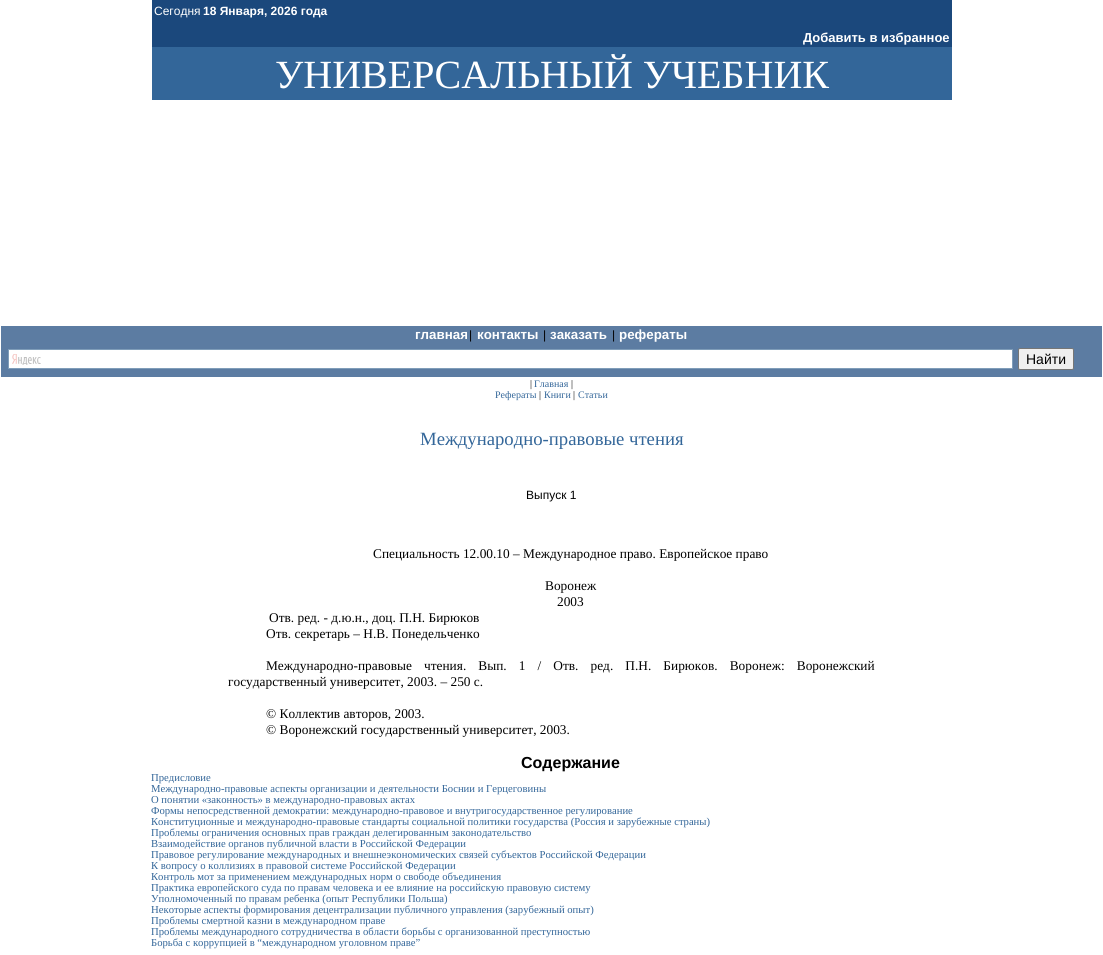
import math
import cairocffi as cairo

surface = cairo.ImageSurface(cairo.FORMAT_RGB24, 1103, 955)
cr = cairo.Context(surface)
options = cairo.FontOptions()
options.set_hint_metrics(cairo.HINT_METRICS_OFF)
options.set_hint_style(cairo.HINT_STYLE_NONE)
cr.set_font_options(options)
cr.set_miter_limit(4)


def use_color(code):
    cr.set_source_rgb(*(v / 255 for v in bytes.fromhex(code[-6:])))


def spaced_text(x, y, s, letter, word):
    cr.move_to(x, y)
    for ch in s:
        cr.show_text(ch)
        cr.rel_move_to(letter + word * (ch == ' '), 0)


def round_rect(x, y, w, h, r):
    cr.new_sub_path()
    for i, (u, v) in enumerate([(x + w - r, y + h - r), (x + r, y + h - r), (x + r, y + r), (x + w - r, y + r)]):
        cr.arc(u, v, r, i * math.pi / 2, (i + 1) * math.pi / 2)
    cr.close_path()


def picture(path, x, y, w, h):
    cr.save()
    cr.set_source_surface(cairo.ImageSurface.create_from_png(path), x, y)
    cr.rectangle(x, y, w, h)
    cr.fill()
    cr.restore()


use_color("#ffffff")
cr.paint()
use_color("#1b487c")
cr.rectangle(152, 0, 800, 47)
cr.fill()
cr.select_font_face("Liberation Sans")
cr.set_font_size(12)
use_color("#ffffff")
cr.move_to(154, 15)
cr.show_text("Сегодня")
cr.select_font_face("Liberation Sans", cairo.FONT_SLANT_NORMAL, cairo.FONT_WEIGHT_BOLD)
cr.move_to(203, 15)
cr.show_text("18 Января, 2026 года")
cr.set_font_size(13)
cr.move_to(803, 42)
cr.show_text("Добавить в избранное")
use_color("#336699")
cr.rectangle(152, 47, 800, 53)
cr.fill()
cr.select_font_face("Liberation Serif")
cr.set_font_size(40)
use_color("#ffffff")
cr.move_to(275, 88)
cr.show_text("УНИВЕРСАЛЬНЫЙ УЧЕБНИК")
use_color("#5c7ca2")
cr.rectangle(1, 326, 1101, 51)
cr.fill()
cr.select_font_face("Liberation Sans", cairo.FONT_SLANT_NORMAL, cairo.FONT_WEIGHT_BOLD)
cr.set_font_size(13.35)
use_color("#ffffff")
cr.move_to(415, 339)
cr.show_text("главная")
cr.select_font_face("Liberation Sans")
cr.set_font_size(12)
use_color("#000000")
cr.move_to(469, 339)
cr.show_text("|")
cr.select_font_face("Liberation Sans", cairo.FONT_SLANT_NORMAL, cairo.FONT_WEIGHT_BOLD)
cr.set_font_size(13.35)
use_color("#ffffff")
cr.move_to(477, 339)
cr.show_text("контакты")
cr.select_font_face("Liberation Sans")
cr.set_font_size(12)
use_color("#000000")
cr.move_to(543, 339)
cr.show_text("|")
cr.select_font_face("Liberation Sans", cairo.FONT_SLANT_NORMAL, cairo.FONT_WEIGHT_BOLD)
cr.set_font_size(13.35)
use_color("#ffffff")
cr.move_to(550, 339)
cr.show_text("заказать")
cr.select_font_face("Liberation Sans")
cr.set_font_size(12)
use_color("#000000")
cr.move_to(612, 339)
cr.show_text("|")
cr.select_font_face("Liberation Sans", cairo.FONT_SLANT_NORMAL, cairo.FONT_WEIGHT_BOLD)
cr.set_font_size(13.35)
use_color("#ffffff")
cr.move_to(619, 339)
cr.show_text("рефераты")
cr.rectangle(9, 350, 1003, 18)
cr.fill()
picture("img1.png", 12, 354, 29, 11)
cr.rectangle(8.5, 349.5, 1004, 19)
use_color("#7f9db9")
cr.set_line_width(1)
cr.stroke()
use_color("#efefef")
round_rect(1018.5, 348.5, 55, 21, 1.5)
cr.fill_preserve()
use_color("#767676")
cr.stroke()
cr.select_font_face("Liberation Sans")
cr.set_font_size(14)
use_color("#000000")
cr.move_to(1026, 364)
cr.show_text("Найти")
cr.select_font_face("Liberation Serif")
cr.set_font_size(10)
cr.move_to(530, 387)
cr.show_text("|")
use_color("#336699")
cr.move_to(534, 387)
cr.show_text("Главная")
use_color("#000000")
cr.move_to(571, 387)
cr.show_text("|")
use_color("#336699")
cr.move_to(495, 398)
cr.show_text("Рефераты")
use_color("#000000")
cr.move_to(539, 398)
cr.show_text("|")
use_color("#336699")
cr.move_to(544, 398)
cr.show_text("Книги")
use_color("#000000")
cr.move_to(573, 398)
cr.show_text("|")
use_color("#336699")
cr.move_to(578, 398)
cr.show_text("Статьи")
cr.set_font_size(18.7)
cr.move_to(420, 445)
cr.show_text("Международно-правовые чтения")
cr.select_font_face("Liberation Sans")
cr.set_font_size(12)
use_color("#000000")
cr.move_to(526, 499)
cr.show_text("Выпуск 1")
cr.select_font_face("Liberation Serif")
cr.set_font_size(13.35)
cr.move_to(373, 558)
cr.show_text("Специальность 12.00.10 – Международное право. Европейское право")
cr.move_to(545, 590)
cr.show_text("Воронеж")
cr.move_to(557, 606)
cr.show_text("2003")
cr.move_to(269, 622)
cr.show_text("Отв. ред. - д.ю.н., доц. П.Н. Бирюков")
cr.move_to(266, 638)
cr.show_text("Отв. секретарь – Н.В. Понедельченко")
spaced_text(266, 670, "Международно-правовые чтения. Вып. 1 / Отв. ред. П.Н. Бирюков. Воронеж: Воронежский", 0, 8.75)
cr.move_to(228, 686)
cr.show_text("государственный университет, 2003. – 250 с.")
cr.move_to(266, 718)
cr.show_text("© Коллектив авторов, 2003.")
cr.move_to(266, 734)
cr.show_text("© Воронежский государственный университет, 2003.")
cr.select_font_face("Liberation Sans", cairo.FONT_SLANT_NORMAL, cairo.FONT_WEIGHT_BOLD)
cr.set_font_size(16)
cr.move_to(521, 768)
cr.show_text("Содержание")
cr.select_font_face("Liberation Serif")
cr.set_font_size(10.67)
use_color("#336699")
cr.move_to(151, 781)
cr.show_text("Предисловие")
cr.move_to(151, 792)
cr.show_text("Международно-правовые аспекты организации и деятельности Боснии и Герцеговины")
cr.move_to(151, 803)
cr.show_text("О понятии «законность» в международно-правовых актах")
cr.move_to(151, 814)
cr.show_text("Формы непосредственной демократии: международно-правовое и внутригосударственное регулирование")
cr.move_to(151, 825)
cr.show_text("Конституционные и международно-правовые стандарты социальной политики государства (Россия и зарубежные страны)")
cr.move_to(151, 836)
cr.show_text("Проблемы ограничения основных прав граждан делегированным законодательство")
cr.move_to(151, 847)
cr.show_text("Взаимодействие органов публичной власти в Российской Федерации")
cr.move_to(151, 858)
cr.show_text("Правовое регулирование международных и внешнеэкономических связей субъектов Российской Федерации")
cr.move_to(151, 869)
cr.show_text("К вопросу о коллизиях в правовой системе Российской Федерации")
cr.move_to(151, 880)
cr.show_text("Контроль мот за применением международных норм о свободе объединения")
cr.move_to(151, 891)
cr.show_text("Практика европейского суда по правам человека и ее влияние на российскую правовую систему")
cr.move_to(151, 902)
cr.show_text("Уполномоченный по правам ребенка (опыт Республики Польша)")
cr.move_to(151, 913)
cr.show_text("Некоторые аспекты формирования децентрализации публичного управления (зарубежный опыт)")
cr.move_to(151, 924)
cr.show_text("Проблемы смертной казни в международном праве")
cr.move_to(151, 935)
cr.show_text("Проблемы международного сотрудничества в области борьбы с организованной преступностью")
cr.move_to(151, 946)
cr.show_text("Борьба с коррупцией в “международном уголовном праве”")
surface.write_to_png("result.png")
